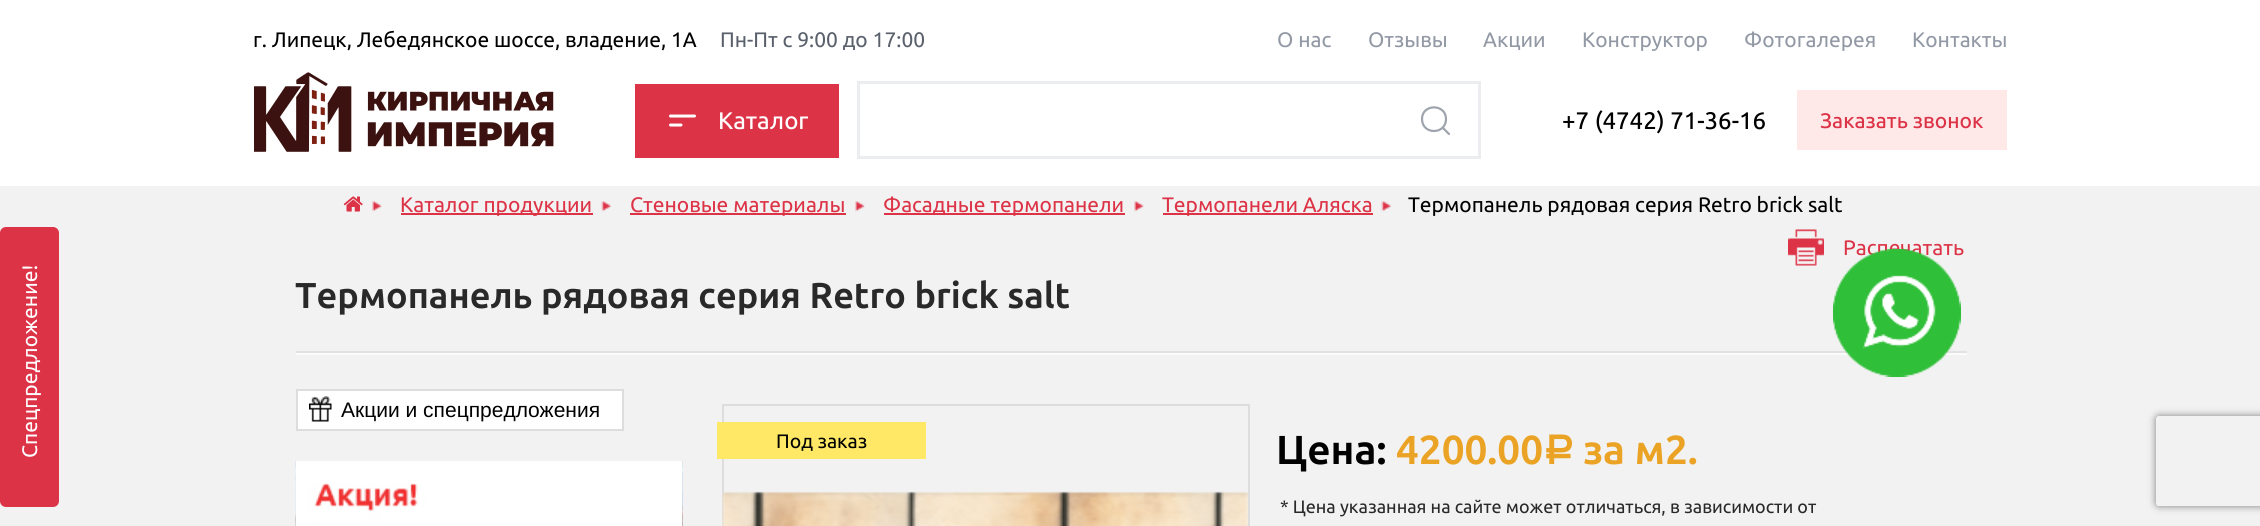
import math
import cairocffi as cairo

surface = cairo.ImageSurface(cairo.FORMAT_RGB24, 2260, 526)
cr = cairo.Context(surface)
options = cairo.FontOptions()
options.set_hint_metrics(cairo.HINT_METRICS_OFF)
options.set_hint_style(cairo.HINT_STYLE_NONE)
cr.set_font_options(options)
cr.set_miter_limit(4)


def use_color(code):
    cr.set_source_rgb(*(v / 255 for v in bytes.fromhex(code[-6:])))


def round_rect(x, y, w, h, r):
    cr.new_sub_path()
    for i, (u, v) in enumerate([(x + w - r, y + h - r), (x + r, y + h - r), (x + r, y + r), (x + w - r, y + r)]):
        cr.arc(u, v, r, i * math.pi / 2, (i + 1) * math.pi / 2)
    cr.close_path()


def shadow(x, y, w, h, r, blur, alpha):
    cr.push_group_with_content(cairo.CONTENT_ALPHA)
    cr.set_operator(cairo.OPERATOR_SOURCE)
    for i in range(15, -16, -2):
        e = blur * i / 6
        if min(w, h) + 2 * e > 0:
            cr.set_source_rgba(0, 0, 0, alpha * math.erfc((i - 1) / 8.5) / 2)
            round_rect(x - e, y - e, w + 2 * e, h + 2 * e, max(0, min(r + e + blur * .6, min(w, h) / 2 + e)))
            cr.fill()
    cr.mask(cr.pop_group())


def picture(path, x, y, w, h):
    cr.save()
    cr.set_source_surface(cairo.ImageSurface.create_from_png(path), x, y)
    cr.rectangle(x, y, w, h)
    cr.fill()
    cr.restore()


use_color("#f2f2f2")
cr.paint()
use_color("#ffffff")
cr.rectangle(0, 0, 2260, 186)
cr.fill()
cr.select_font_face("Ubuntu")
cr.set_font_size(21)
use_color("#000000")
cr.move_to(253, 47)
cr.show_text("г. Липецк, Лебедянское шоссе, владение, 1А")
use_color("#5a616c")
cr.move_to(720, 47)
cr.show_text("Пн-Пт с 9:00 до 17:00")
use_color("#9299a5")
cr.move_to(1277, 47)
cr.show_text("О наc")
cr.move_to(1368, 47)
cr.show_text("Отзывы")
cr.move_to(1483, 47)
cr.show_text("Акции")
cr.move_to(1582, 47)
cr.show_text("Конструктор")
cr.move_to(1744, 47)
cr.show_text("Фотогалерея")
cr.move_to(1912, 47)
cr.show_text("Контакты")
picture("img1.png", 254, 72, 300, 80)
use_color("#dd3347")
cr.rectangle(635, 84, 204, 74)
cr.fill()
cr.new_path()
cr.move_to(670.5, 116)
cr.line_to(694.5, 116)
cr.move_to(670.5, 125)
cr.line_to(681, 125)
use_color("#ffffff")
cr.set_line_width(3)
cr.set_line_cap(cairo.LINE_CAP_ROUND)
cr.set_line_join(cairo.LINE_JOIN_ROUND)
cr.stroke()
cr.select_font_face("Ubuntu Medium")
cr.set_font_size(24)
cr.move_to(718, 129)
cr.show_text("Каталог")
cr.rectangle(858.5, 82.5, 621, 75)
use_color("#ebedf1")
cr.set_line_cap(cairo.LINE_CAP_BUTT)
cr.set_line_join(cairo.LINE_JOIN_MITER)
cr.stroke()
cr.new_path()
cr.move_to(1449, 134)
cr.line_to(1442.5, 127.5)
cr.move_to(1446, 119)
cr.curve_to(1446, 135, 1422, 135, 1422, 119)
cr.curve_to(1422, 103.5, 1446, 103.5, 1446, 119)
cr.close_path()
use_color("#9ea4ad")
cr.set_line_width(2.2)
cr.set_line_cap(cairo.LINE_CAP_ROUND)
cr.set_line_join(cairo.LINE_JOIN_ROUND)
cr.stroke()
use_color("#000000")
cr.move_to(1562, 129)
cr.show_text("+7 (4742) 71-36-16")
use_color("#ffe8e8")
cr.rectangle(1797, 90, 210, 60)
cr.fill()
cr.set_font_size(21)
use_color("#dd3347")
cr.move_to(1820, 128)
cr.show_text("Заказать звонок")
picture("img2.png", 343, 196, 20, 16)
picture("img3.png", 372, 201, 10, 11)
cr.rectangle(401, 213, 192, 2)
cr.fill()
cr.select_font_face("Ubuntu")
cr.move_to(400, 212)
cr.show_text("Каталог продукции")
picture("img4.png", 601, 201, 10, 11)
cr.rectangle(630, 213, 216, 2)
cr.fill()
cr.move_to(630, 212)
cr.show_text("Стеновые материалы")
picture("img5.png", 855, 201, 10, 11)
cr.rectangle(884, 213, 241, 2)
cr.fill()
cr.move_to(883, 212)
cr.show_text("Фасадные термопанели")
picture("img3.png", 1134, 201, 10, 11)
cr.rectangle(1163, 213, 210, 2)
cr.fill()
cr.move_to(1162, 212)
cr.show_text("Термопанели Аляска")
picture("img4.png", 1381, 201, 10, 11)
use_color("#000000")
cr.move_to(1408, 212)
cr.show_text("Термопанель рядовая серия Retro brick salt")
picture("img6.png", 1788, 229, 36, 37)
use_color("#dd3347")
cr.move_to(1843, 255)
cr.show_text("Распечатать")
cr.select_font_face("Ubuntu", cairo.FONT_SLANT_NORMAL, cairo.FONT_WEIGHT_BOLD)
cr.set_font_size(36)
use_color("#292929")
cr.move_to(295, 308)
cr.show_text("Термопанель рядовая серия Retro brick salt")
use_color("#e2e2e2")
cr.rectangle(296, 351, 1671, 2)
cr.fill()
use_color("#fbfbfb")
cr.rectangle(296, 353, 1671, 2)
cr.fill()
use_color("#ffffff")
cr.rectangle(297, 390, 326, 40)
cr.fill_preserve()
use_color("#dddddd")
cr.set_line_width(2)
cr.set_line_cap(cairo.LINE_CAP_BUTT)
cr.set_line_join(cairo.LINE_JOIN_MITER)
cr.stroke()
picture("img7.png", 309, 396, 23, 26)
cr.select_font_face("Liberation Sans")
cr.set_font_size(21)
use_color("#000000")
cr.move_to(341, 417)
cr.show_text("Акции и спецпредложения")
picture("img8.png", 295, 461, 1, 65)
picture("img9.png", 295, 461, 388, 65)
picture("img10.png", 682, 461, 1, 65)
cr.rectangle(723, 405, 526, 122)
use_color("#dddddd")
cr.stroke()
picture("img11.png", 722, 491, 526, 35)
use_color("#ffe866")
cr.rectangle(717, 422, 209, 37)
cr.fill()
cr.select_font_face("Ubuntu")
cr.set_font_size(19.5)
use_color("#000000")
cr.move_to(776, 448)
cr.show_text("Под заказ")
cr.select_font_face("Ubuntu", cairo.FONT_SLANT_NORMAL, cairo.FONT_WEIGHT_BOLD)
cr.set_font_size(40.5)
cr.move_to(1276, 464)
cr.show_text("Цена:")
use_color("#eba326")
cr.move_to(1396, 464)
cr.show_text("4200.00")
cr.select_font_face("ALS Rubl", cairo.FONT_SLANT_NORMAL, cairo.FONT_WEIGHT_BOLD)
cr.move_to(1543, 464)
cr.show_text("a")
cr.select_font_face("Ubuntu", cairo.FONT_SLANT_NORMAL, cairo.FONT_WEIGHT_BOLD)
cr.move_to(1583, 464)
cr.show_text("за м2.")
cr.select_font_face("Ubuntu")
cr.set_font_size(18)
use_color("#292929")
cr.move_to(1280, 513)
cr.show_text("* Цена указанная на сайте может отличаться, в зависимости от")
use_color("#dd3347")
round_rect(0, 227, 59, 280, 6)
cr.fill()
cr.set_font_size(21)
use_color("#ffffff")
cr.save()
cr.translate(37, 458)
cr.rotate(-90 * math.pi / 180)
cr.move_to(0, 0)
cr.show_text("Спецпредложение!")
cr.restore()
picture("img12.png", 1833, 249, 128, 128)
cr.save()
cr.set_fill_rule(cairo.FILL_RULE_EVEN_ODD)
cr.new_path()
cr.move_to(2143, 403)
cr.line_to(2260, 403)
cr.line_to(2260, 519)
cr.line_to(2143, 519)
cr.close_path()
cr.move_to(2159, 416)
cr.line_to(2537, 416)
cr.curve_to(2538.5, 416, 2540, 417.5, 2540, 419)
cr.line_to(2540, 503)
cr.curve_to(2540, 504.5, 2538.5, 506, 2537, 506)
cr.line_to(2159, 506)
cr.curve_to(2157.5, 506, 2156, 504.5, 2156, 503)
cr.line_to(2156, 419)
cr.curve_to(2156, 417.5, 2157.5, 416, 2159, 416)
cr.close_path()
cr.clip()
use_color("#808080")
shadow(2156, 416, 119, 90, 3, 4, 1)
cr.restore()
surface.write_to_png("result.png")
